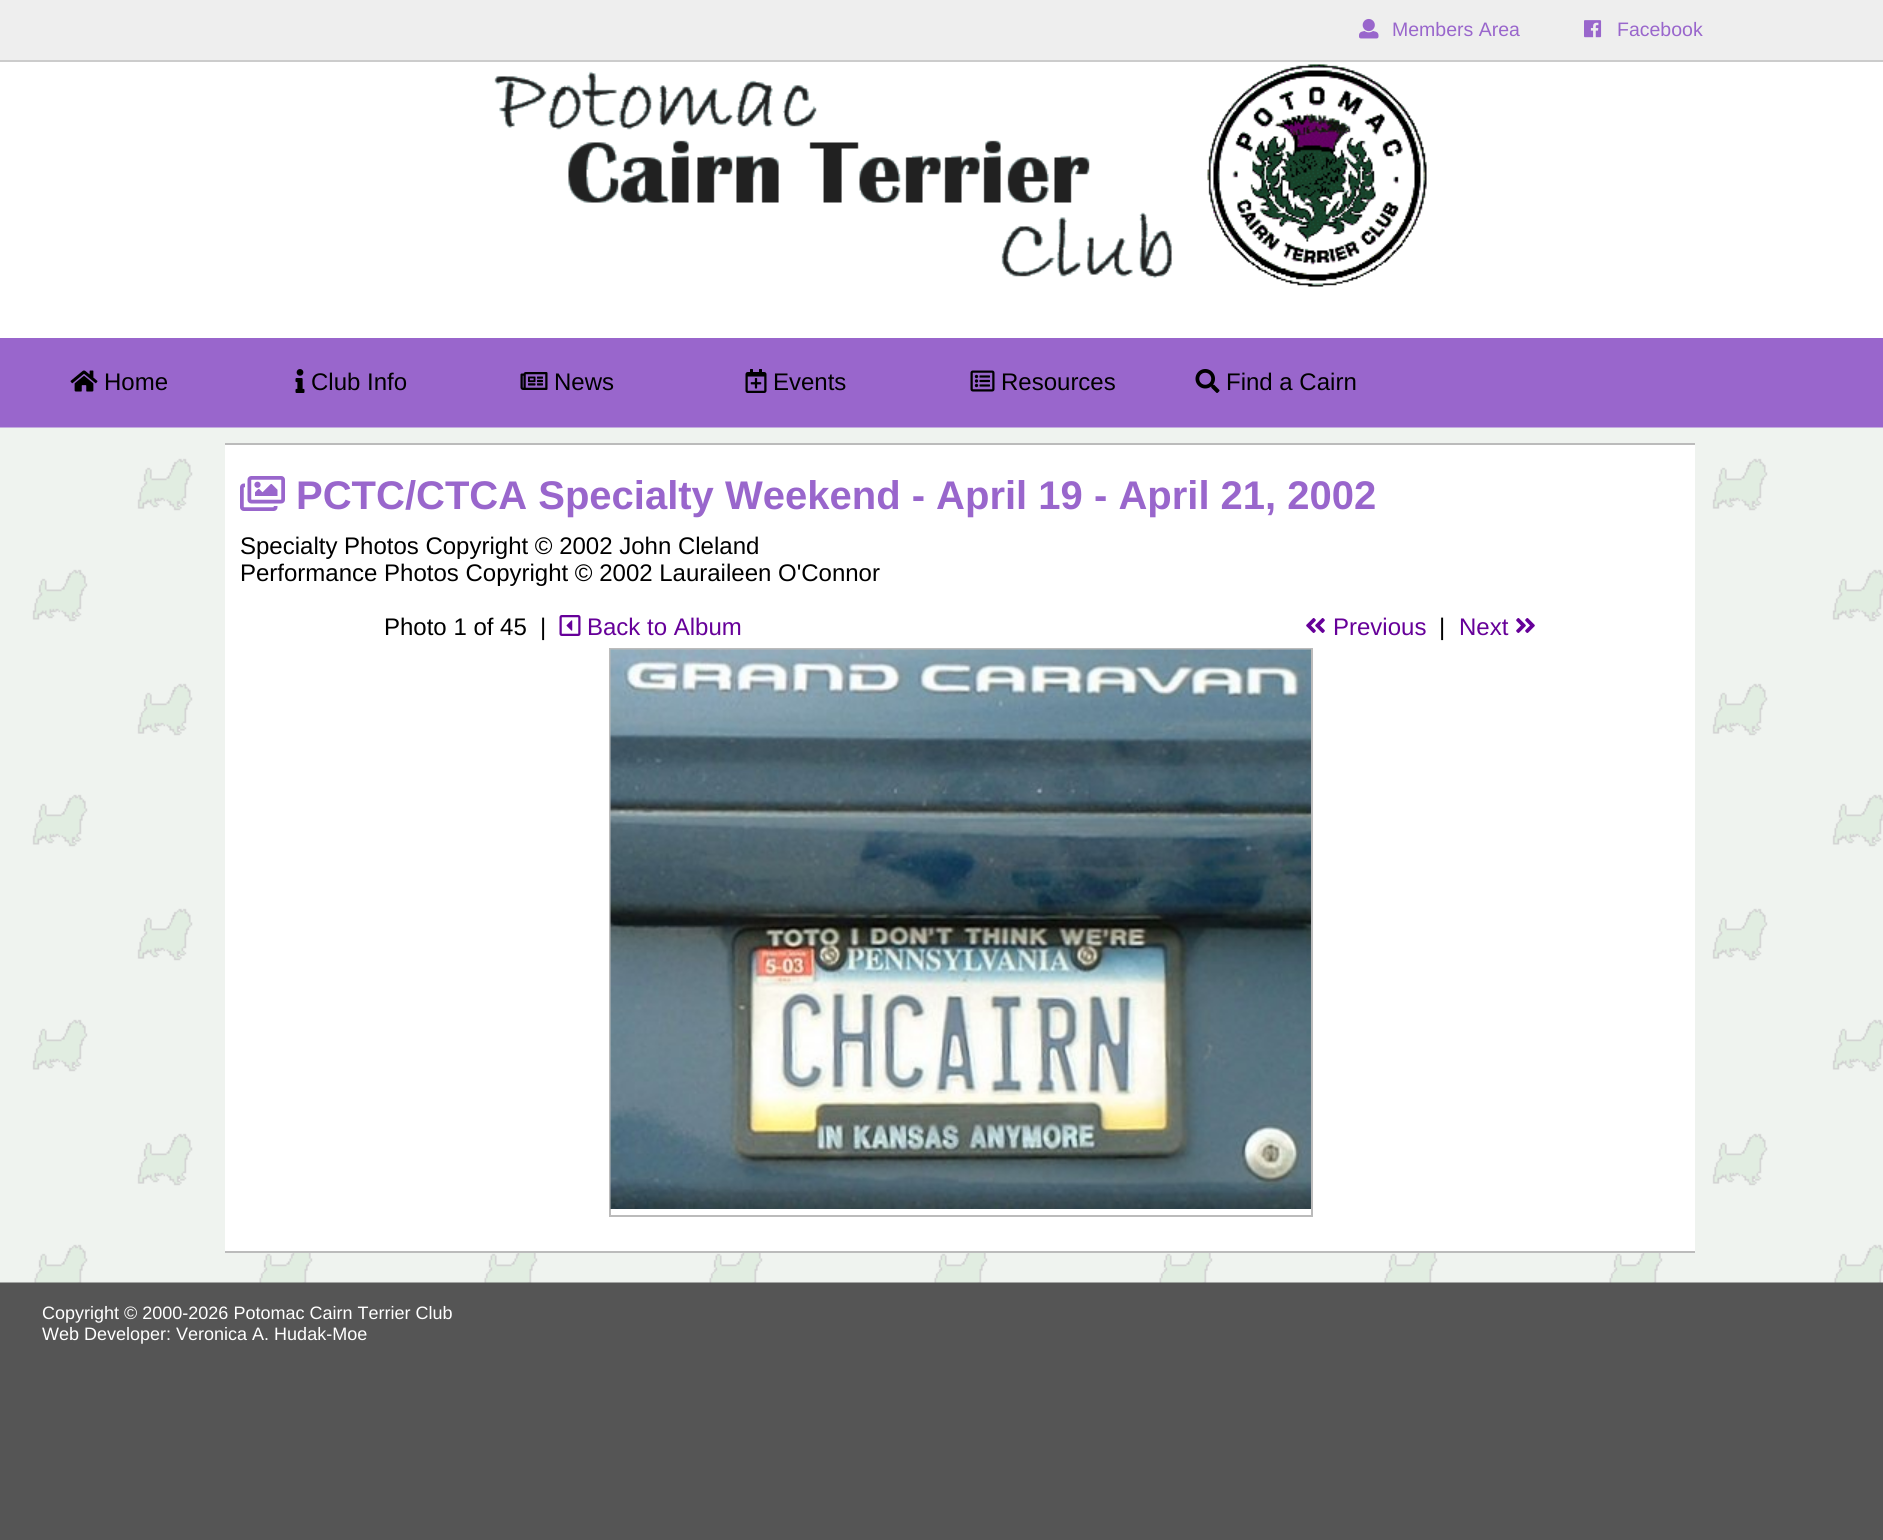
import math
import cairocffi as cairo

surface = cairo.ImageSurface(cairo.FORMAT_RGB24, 1883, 1540)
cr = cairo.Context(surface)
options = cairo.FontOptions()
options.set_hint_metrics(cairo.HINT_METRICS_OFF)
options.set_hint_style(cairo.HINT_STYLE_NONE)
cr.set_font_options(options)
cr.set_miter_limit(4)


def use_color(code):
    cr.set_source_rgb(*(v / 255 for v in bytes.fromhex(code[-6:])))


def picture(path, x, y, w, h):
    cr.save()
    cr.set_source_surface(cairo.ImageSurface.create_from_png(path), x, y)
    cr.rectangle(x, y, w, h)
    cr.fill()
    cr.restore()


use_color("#555555")
cr.paint()
use_color("#eeeeee")
cr.rectangle(0, 0, 1883, 60)
cr.fill()
use_color("#cccccc")
cr.rectangle(0, 60, 1883, 2)
cr.fill()
picture("img1.png", 1359, 18, 20, 21)
cr.select_font_face("Liberation Sans")
cr.set_font_size(19.5)
use_color("#9966cc")
cr.move_to(1392, 36)
cr.show_text("Members Area")
picture("img2.png", 1584, 20, 18, 18)
cr.move_to(1617, 36)
cr.show_text("Facebook")
use_color("#ffffff")
cr.rectangle(0, 62, 1883, 276)
cr.fill()
picture("img3.png", 494, 71, 678, 207)
picture("img4.png", 1207, 64, 220, 223)
use_color("#9966cc")
cr.rectangle(0, 338, 1883, 90)
cr.fill()
picture("img5.png", 70, 370, 28, 22)
cr.set_font_size(24)
use_color("#000000")
cr.move_to(104, 390)
cr.show_text("Home")
picture("img6.png", 295, 369, 10, 24)
cr.move_to(311, 390)
cr.show_text("Club Info")
picture("img7.png", 520, 372, 28, 18)
cr.move_to(554, 390)
cr.show_text("News")
picture("img8.png", 745, 369, 22, 24)
cr.move_to(773, 390)
cr.show_text("Events")
picture("img9.png", 970, 370, 25, 22)
cr.move_to(1001, 390)
cr.show_text("Resources")
picture("img10.png", 1195, 369, 25, 24)
cr.move_to(1226, 390)
cr.show_text("Find a Cairn")
picture("img11.png", 0, 427, 1883, 856)
use_color("#ffffff")
cr.rectangle(225, 445, 1470, 806)
cr.fill()
use_color("#bbbbbb")
cr.rectangle(225, 443, 1470, 2)
cr.fill()
cr.rectangle(225, 1251, 1470, 2)
cr.fill()
picture("img12.png", 240, 476, 45, 35)
cr.select_font_face("Liberation Sans", cairo.FONT_SLANT_NORMAL, cairo.FONT_WEIGHT_BOLD)
cr.set_font_size(40)
use_color("#9966cc")
cr.move_to(296, 509)
cr.show_text("PCTC/CTCA Specialty Weekend - April 19 - April 21, 2002")
cr.select_font_face("Liberation Sans")
cr.set_font_size(24)
use_color("#000000")
cr.move_to(240, 554)
cr.show_text("Specialty Photos Copyright © 2002 John Cleland")
cr.move_to(240, 581)
cr.show_text("Performance Photos Copyright © 2002 Lauraileen O'Connor")
cr.move_to(384, 635)
cr.show_text("Photo 1 of 45  |")
picture("img13.png", 559, 615, 22, 21)
use_color("#660099")
cr.move_to(587, 635)
cr.show_text("Back to Album")
picture("img14.png", 1306, 618, 19, 15)
cr.move_to(1333, 635)
cr.show_text("Previous")
use_color("#000000")
cr.move_to(1439, 635)
cr.show_text("|")
use_color("#660099")
cr.move_to(1459, 635)
cr.show_text("Next")
picture("img15.png", 1516, 618, 19, 15)
cr.rectangle(610, 649, 702, 567)
use_color("#bbbbbb")
cr.stroke()
picture("img16.png", 610, 649, 701, 560)
cr.set_font_size(18)
use_color("#ffffff")
cr.move_to(42, 1319)
cr.show_text("Copyright © 2000-2026 Potomac Cairn Terrier Club")
cr.move_to(42, 1340)
cr.show_text("Web Developer: Veronica A. Hudak-Moe")
surface.write_to_png("result.png")
